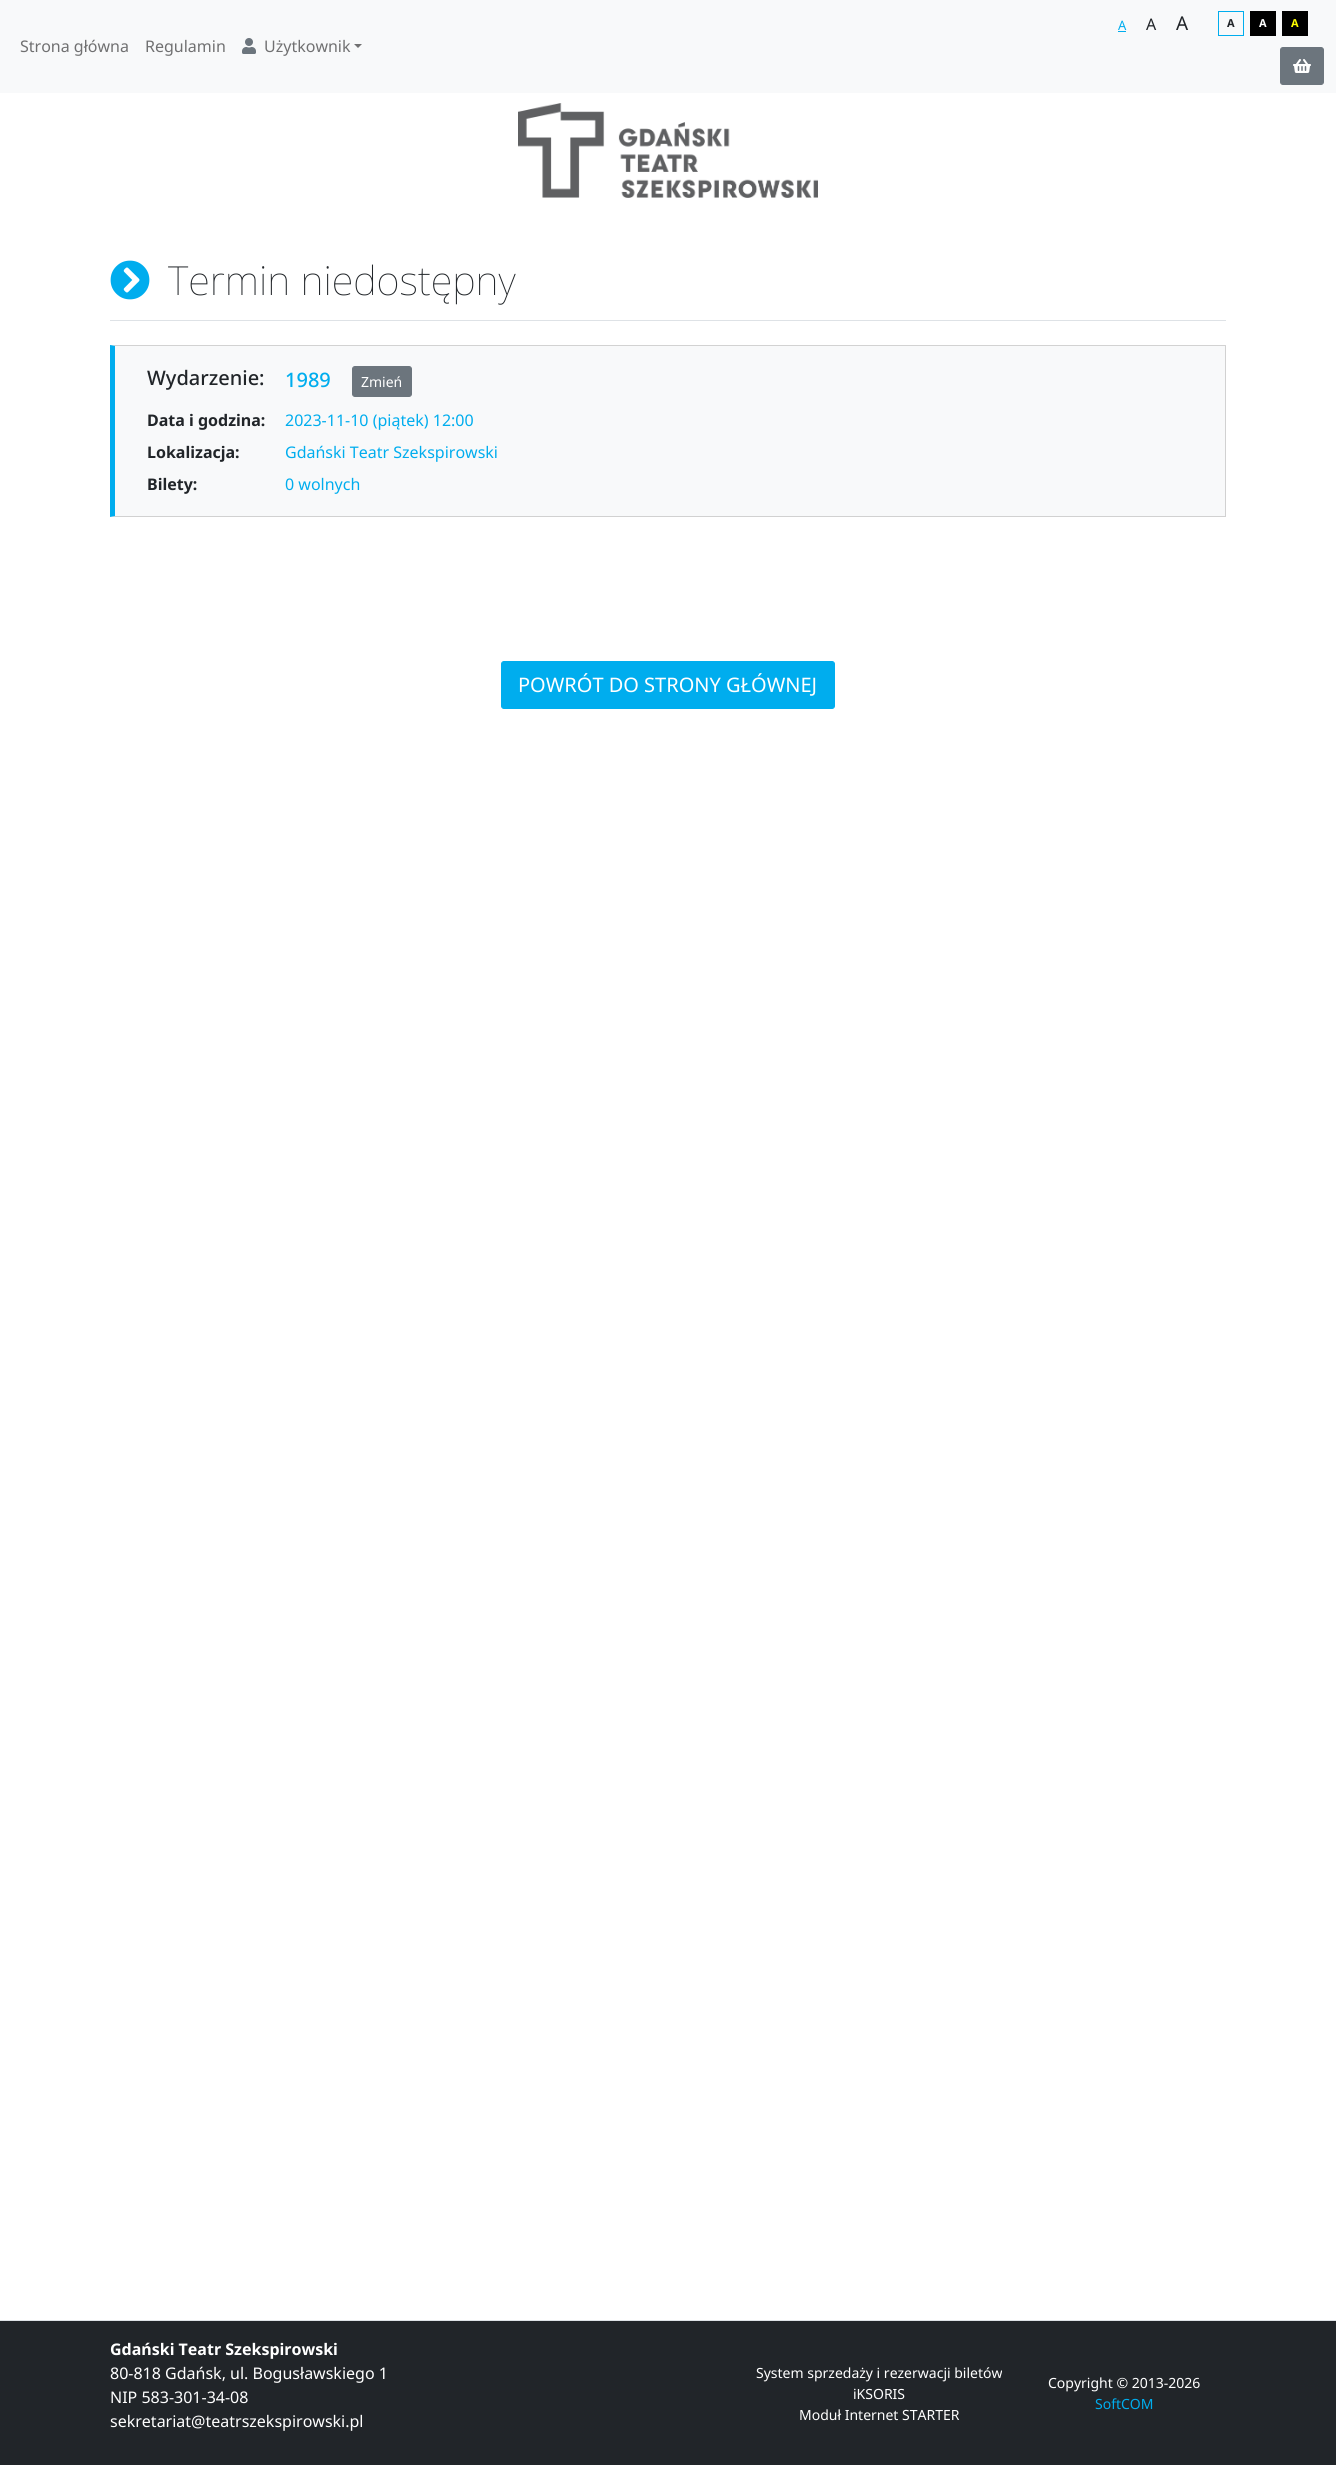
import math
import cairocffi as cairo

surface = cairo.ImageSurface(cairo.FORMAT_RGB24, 1336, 2465)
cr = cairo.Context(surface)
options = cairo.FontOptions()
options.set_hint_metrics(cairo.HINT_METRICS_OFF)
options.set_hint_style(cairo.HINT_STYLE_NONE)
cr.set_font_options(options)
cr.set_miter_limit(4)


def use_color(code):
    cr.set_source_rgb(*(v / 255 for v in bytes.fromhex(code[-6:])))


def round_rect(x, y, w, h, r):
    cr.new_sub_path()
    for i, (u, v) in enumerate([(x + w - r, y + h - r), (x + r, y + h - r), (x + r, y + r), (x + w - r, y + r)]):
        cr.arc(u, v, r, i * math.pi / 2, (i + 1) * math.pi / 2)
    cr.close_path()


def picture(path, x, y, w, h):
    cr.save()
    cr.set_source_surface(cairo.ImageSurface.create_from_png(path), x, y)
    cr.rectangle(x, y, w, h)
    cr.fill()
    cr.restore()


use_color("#ffffff")
cr.paint()
use_color("#f8f9fa")
cr.rectangle(0, 0, 1336, 93)
cr.fill()
cr.select_font_face("Noto Sans")
cr.set_font_size(13)
use_color("#00adee")
cr.move_to(1118, 30)
cr.show_text("A")
cr.rectangle(1118, 31, 8, 1)
cr.fill()
cr.set_font_size(16)
use_color("#212529")
cr.move_to(1146, 30)
cr.show_text("A")
cr.set_font_size(19)
cr.move_to(1176, 30)
cr.show_text("A")
cr.rectangle(1218.5, 11.5, 25, 24)
use_color("#00adee")
cr.set_line_width(1)
cr.stroke()
cr.select_font_face("Noto Sans", cairo.FONT_SLANT_NORMAL, cairo.FONT_WEIGHT_BOLD)
cr.set_font_size(11)
use_color("#212529")
cr.move_to(1227, 27)
cr.show_text("A")
use_color("#000000")
cr.rectangle(1250, 11, 26, 25)
cr.fill()
use_color("#ffffff")
cr.move_to(1259, 27)
cr.show_text("A")
use_color("#000000")
cr.rectangle(1282, 11, 26, 25)
cr.fill()
use_color("#ffff00")
cr.move_to(1291, 27)
cr.show_text("A")
use_color("#6c757d")
round_rect(1280.5, 47.5, 43, 37, 2.5)
cr.fill_preserve()
cr.stroke()
picture("img1.png", 1293, 59, 18, 14)
cr.select_font_face("Noto Sans")
cr.set_font_size(16)
use_color("#707071")
cr.move_to(20, 52)
cr.show_text("Strona główna")
cr.move_to(145, 52)
cr.show_text("Regulamin")
picture("img2.png", 242, 38, 14, 16)
cr.move_to(264, 52)
cr.show_text("Użytkownik")
cr.new_path()
cr.move_to(354, 44)
cr.line_to(362, 44)
cr.line_to(358, 48)
cr.close_path()
cr.fill()
picture("img3.png", 518, 103, 300, 95)
use_color("#dee2e6")
cr.rectangle(110, 320, 1116, 1)
cr.fill()
picture("img4.png", 110, 260, 40, 40)
cr.select_font_face("Noto Sans Thin")
cr.set_font_size(40)
use_color("#212529")
cr.move_to(168, 295)
cr.show_text("Termin niedostępny")
use_color("#d2d2d2")
cr.new_path()
cr.move_to(110, 345)
cr.line_to(1226, 345)
cr.line_to(1225, 346)
cr.line_to(115, 346)
cr.close_path()
cr.fill()
cr.set_source_rgba(0, 0, 0, 0.18)
cr.new_path()
cr.move_to(1226, 345)
cr.line_to(1226, 517)
cr.line_to(1225, 516)
cr.line_to(1225, 346)
cr.close_path()
cr.fill()
cr.new_path()
cr.move_to(1226, 517)
cr.line_to(110, 517)
cr.line_to(115, 516)
cr.line_to(1225, 516)
cr.close_path()
cr.fill()
use_color("#00adee")
cr.new_path()
cr.move_to(110, 517)
cr.line_to(110, 345)
cr.line_to(115, 346)
cr.line_to(115, 516)
cr.close_path()
cr.fill()
use_color("#f8f9fa")
cr.rectangle(115, 346, 1110, 170)
cr.fill()
cr.select_font_face("Noto Sans Medium")
cr.set_font_size(20)
use_color("#212529")
cr.move_to(147, 385)
cr.show_text("Wydarzenie:")
use_color("#00adee")
cr.move_to(285, 387)
cr.show_text("1989")
use_color("#6c757d")
round_rect(352.5, 366.5, 59, 30, 2.5)
cr.fill_preserve()
cr.stroke()
cr.select_font_face("Noto Sans")
cr.set_font_size(14)
use_color("#ffffff")
cr.move_to(361, 387)
cr.show_text("Zmień")
cr.select_font_face("Noto Sans", cairo.FONT_SLANT_NORMAL, cairo.FONT_WEIGHT_BOLD)
cr.set_font_size(16)
use_color("#212529")
cr.move_to(147, 426)
cr.show_text("Data i godzina:")
cr.select_font_face("Noto Sans")
use_color("#00adee")
cr.move_to(285, 426)
cr.show_text("2023-11-10 (piątek) 12:00")
cr.select_font_face("Noto Sans", cairo.FONT_SLANT_NORMAL, cairo.FONT_WEIGHT_BOLD)
use_color("#212529")
cr.move_to(147, 458)
cr.show_text("Lokalizacja:")
cr.select_font_face("Noto Sans")
use_color("#00adee")
cr.move_to(285, 458)
cr.show_text("Gdański Teatr Szekspirowski")
cr.select_font_face("Noto Sans", cairo.FONT_SLANT_NORMAL, cairo.FONT_WEIGHT_BOLD)
use_color("#212529")
cr.move_to(147, 490)
cr.show_text("Bilety:")
cr.select_font_face("Noto Sans")
use_color("#00adee")
cr.move_to(285, 490)
cr.show_text("0 wolnych")
round_rect(501.5, 661.5, 333, 47, 2.5)
cr.fill_preserve()
cr.stroke()
cr.set_font_size(20)
use_color("#ffffff")
cr.move_to(518, 692)
cr.show_text("POWRÓT DO STRONY GŁÓWNEJ")
use_color("#212529")
cr.rectangle(0, 2321, 1336, 144)
cr.fill()
use_color("#dee2e6")
cr.rectangle(0, 2320, 1336, 1)
cr.fill()
cr.select_font_face("Noto Sans", cairo.FONT_SLANT_NORMAL, cairo.FONT_WEIGHT_BOLD)
cr.set_font_size(16)
use_color("#ffffff")
cr.move_to(110, 2355)
cr.show_text("Gdański Teatr Szekspirowski")
cr.select_font_face("Noto Sans")
cr.move_to(110, 2379)
cr.show_text("80-818 Gdańsk, ul. Bogusławskiego 1")
cr.move_to(110, 2403)
cr.show_text("NIP 583-301-34-08")
cr.move_to(110, 2427)
cr.show_text("sekretariat@teatrszekspirowski.pl")
cr.set_font_size(14)
cr.move_to(756, 2378)
cr.show_text("System sprzedaży i rezerwacji biletów")
cr.move_to(853, 2399)
cr.show_text("iKSORIS")
cr.move_to(799, 2420)
cr.show_text("Moduł Internet STARTER")
cr.move_to(1048, 2388)
cr.show_text("Copyright © 2013-2026")
use_color("#00adee")
cr.move_to(1095, 2409)
cr.show_text("SoftCOM")
surface.write_to_png("result.png")
